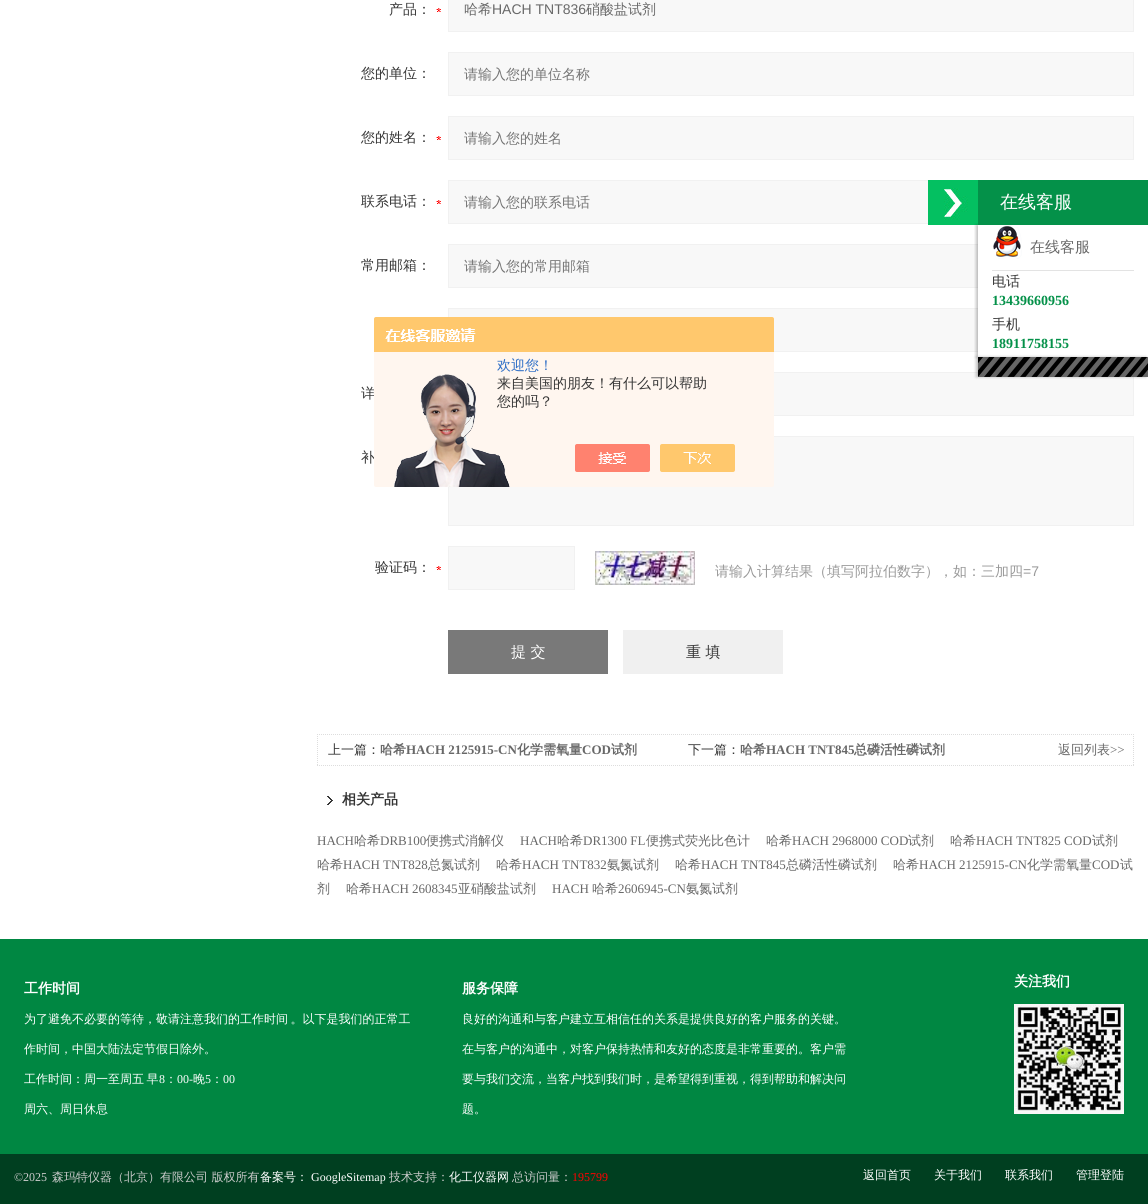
import math
import cairocffi as cairo

surface = cairo.ImageSurface(cairo.FORMAT_RGB24, 1148, 1204)
cr = cairo.Context(surface)
options = cairo.FontOptions()
options.set_hint_metrics(cairo.HINT_METRICS_OFF)
options.set_hint_style(cairo.HINT_STYLE_NONE)
cr.set_font_options(options)
cr.set_miter_limit(4)


def use_color(code):
    cr.set_source_rgb(*(v / 255 for v in bytes.fromhex(code[-6:])))


def spaced_text(x, y, s, letter, word):
    cr.move_to(x, y)
    for ch in s:
        cr.show_text(ch)
        cr.rel_move_to(letter + word * (ch == ' '), 0)


def round_rect(x, y, w, h, r):
    cr.new_sub_path()
    for i, (u, v) in enumerate([(x + w - r, y + h - r), (x + r, y + h - r), (x + r, y + r), (x + w - r, y + r)]):
        cr.arc(u, v, r, i * math.pi / 2, (i + 1) * math.pi / 2)
    cr.close_path()


def shadow(x, y, w, h, r, blur, alpha):
    cr.push_group_with_content(cairo.CONTENT_ALPHA)
    cr.set_operator(cairo.OPERATOR_SOURCE)
    for i in range(15, -16, -2):
        e = blur * i / 6
        if min(w, h) + 2 * e > 0:
            cr.set_source_rgba(0, 0, 0, alpha * math.erfc((i - 1) / 8.5) / 2)
            round_rect(x - e, y - e, w + 2 * e, h + 2 * e, max(0, min(r + e + blur * .6, min(w, h) / 2 + e)))
            cr.fill()
    cr.mask(cr.pop_group())


def picture(path, x, y, w, h):
    cr.save()
    cr.set_source_surface(cairo.ImageSurface.create_from_png(path), x, y)
    cr.rectangle(x, y, w, h)
    cr.fill()
    cr.restore()


use_color("#ffffff")
cr.paint()
picture("img1.png", 436, 8, 5, 4)
cr.select_font_face("WenQuanYi Zen Hei Medium")
cr.set_font_size(14)
use_color("#353535")
cr.move_to(389, 14)
cr.show_text("产品：")
use_color("#f8f8f8")
cr.rectangle(448.5, -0.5, 685, 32)
cr.fill_preserve()
use_color("#f1f1f1")
cr.set_line_width(1)
cr.stroke()
use_color("#686868")
cr.move_to(464, 14)
cr.show_text("哈希")
cr.select_font_face("Liberation Sans")
cr.move_to(492, 14)
cr.show_text("HACH TNT836")
cr.select_font_face("WenQuanYi Zen Hei Medium")
cr.move_to(586, 14)
cr.show_text("硝酸盐试剂")
use_color("#353535")
cr.move_to(361, 78)
cr.show_text("您的单位：")
use_color("#f8f8f8")
cr.rectangle(448.5, 52.5, 685, 43)
cr.fill_preserve()
use_color("#f1f1f1")
cr.stroke()
use_color("#757575")
cr.move_to(464, 79)
cr.show_text("请输入您的单位名称")
picture("img1.png", 436, 136, 5, 4)
use_color("#353535")
cr.move_to(361, 142)
cr.show_text("您的姓名：")
use_color("#f8f8f8")
cr.rectangle(448.5, 116.5, 685, 43)
cr.fill_preserve()
use_color("#f1f1f1")
cr.stroke()
use_color("#757575")
cr.move_to(464, 143)
cr.show_text("请输入您的姓名")
picture("img1.png", 436, 200, 5, 4)
use_color("#353535")
cr.move_to(361, 206)
cr.show_text("联系电话：")
use_color("#f8f8f8")
cr.rectangle(449, 181, 479, 42)
cr.fill()
cr.rectangle(448.5, 180.5, 685, 43)
use_color("#f1f1f1")
cr.stroke()
use_color("#757575")
cr.move_to(464, 207)
cr.show_text("请输入您的联系电话")
use_color("#353535")
cr.move_to(361, 270)
cr.show_text("常用邮箱：")
use_color("#f8f8f8")
cr.rectangle(449, 245, 529, 42)
cr.fill()
cr.rectangle(448.5, 244.5, 685, 43)
use_color("#f1f1f1")
cr.stroke()
use_color("#757575")
cr.move_to(464, 271)
cr.show_text("请输入您的常用邮箱")
use_color("#f8f8f8")
cr.rectangle(449, 309, 529, 42)
cr.fill()
cr.rectangle(448.5, 308.5, 685, 43)
use_color("#f1f1f1")
cr.stroke()
use_color("#353535")
cr.move_to(361, 398)
cr.show_text("详")
use_color("#f8f8f8")
cr.rectangle(774, 373, 359, 42)
cr.fill()
cr.rectangle(448.5, 372.5, 685, 43)
use_color("#f1f1f1")
cr.stroke()
use_color("#353535")
cr.move_to(361, 462)
cr.show_text("补")
use_color("#f8f8f8")
cr.rectangle(448.5, 436.5, 685, 89)
cr.fill_preserve()
use_color("#f1f1f1")
cr.stroke()
picture("img1.png", 436, 566, 5, 4)
use_color("#353535")
cr.move_to(375, 572)
cr.show_text("验证码：")
use_color("#f8f8f8")
cr.rectangle(448.5, 546.5, 126, 43)
cr.fill_preserve()
use_color("#f1f1f1")
cr.stroke()
picture("img2.png", 595, 551, 100, 34)
use_color("#999999")
cr.move_to(715, 576)
cr.show_text("请输入计算结果（填写阿拉伯数字），如：三加四")
cr.select_font_face("Liberation Sans")
cr.move_to(1023, 576)
cr.show_text("=7")
use_color("#797979")
cr.rectangle(448, 630, 160, 44)
cr.fill()
cr.select_font_face("WenQuanYi Zen Hei Medium")
cr.set_font_size(15)
use_color("#ffffff")
cr.move_to(511, 657)
cr.show_text("提 交")
use_color("#f0f0f0")
cr.rectangle(623, 630, 160, 44)
cr.fill()
use_color("#353535")
cr.move_to(686, 657)
cr.show_text("重 填")
cr.new_path()
cr.move_to(317, 734.5)
cr.line_to(1134, 734.5)
use_color("#dddddd")
cr.set_dash([1, 1])
cr.stroke()
cr.new_path()
cr.move_to(1133.5, 734)
cr.line_to(1133.5, 766)
cr.stroke()
cr.new_path()
cr.move_to(317, 765.5)
cr.line_to(1134, 765.5)
cr.stroke()
cr.new_path()
cr.move_to(317.5, 734)
cr.line_to(317.5, 766)
cr.stroke()
cr.set_font_size(13)
use_color("#353535")
cr.move_to(328, 754)
cr.show_text("上一篇：")
cr.select_font_face("WenQuanYi Zen Hei", cairo.FONT_SLANT_NORMAL, cairo.FONT_WEIGHT_BOLD)
use_color("#686868")
cr.move_to(380, 754)
cr.show_text("哈希")
cr.select_font_face("Liberation Serif", cairo.FONT_SLANT_NORMAL, cairo.FONT_WEIGHT_BOLD)
cr.move_to(406, 754)
cr.show_text("HACH 2125915-CN")
cr.select_font_face("WenQuanYi Zen Hei", cairo.FONT_SLANT_NORMAL, cairo.FONT_WEIGHT_BOLD)
cr.move_to(517, 754)
cr.show_text("化学需氧量")
cr.select_font_face("Liberation Serif", cairo.FONT_SLANT_NORMAL, cairo.FONT_WEIGHT_BOLD)
cr.move_to(582, 754)
cr.show_text("COD")
cr.select_font_face("WenQuanYi Zen Hei", cairo.FONT_SLANT_NORMAL, cairo.FONT_WEIGHT_BOLD)
cr.move_to(611, 754)
cr.show_text("试剂")
cr.select_font_face("WenQuanYi Zen Hei Medium")
use_color("#353535")
cr.move_to(688, 754)
cr.show_text("下一篇：")
cr.select_font_face("WenQuanYi Zen Hei", cairo.FONT_SLANT_NORMAL, cairo.FONT_WEIGHT_BOLD)
use_color("#686868")
cr.move_to(740, 754)
cr.show_text("哈希")
cr.select_font_face("Liberation Serif", cairo.FONT_SLANT_NORMAL, cairo.FONT_WEIGHT_BOLD)
cr.move_to(766, 754)
cr.show_text("HACH TNT845")
cr.select_font_face("WenQuanYi Zen Hei", cairo.FONT_SLANT_NORMAL, cairo.FONT_WEIGHT_BOLD)
cr.move_to(854, 754)
cr.show_text("总磷活性磷试剂")
cr.select_font_face("WenQuanYi Zen Hei Medium")
cr.move_to(1058, 754)
cr.show_text("返回列表")
cr.select_font_face("Liberation Serif")
cr.move_to(1110, 754)
cr.show_text(">>")
picture("img3.png", 327, 796, 6, 9)
cr.select_font_face("WenQuanYi Zen Hei", cairo.FONT_SLANT_NORMAL, cairo.FONT_WEIGHT_BOLD)
cr.set_font_size(14)
use_color("#353535")
cr.move_to(342, 804)
cr.show_text("相关产品")
cr.select_font_face("Liberation Serif")
cr.set_font_size(13)
use_color("#686868")
cr.move_to(317, 845)
cr.show_text("HACH")
cr.select_font_face("WenQuanYi Zen Hei Medium")
cr.move_to(354, 845)
cr.show_text("哈希")
cr.select_font_face("Liberation Serif")
cr.move_to(380, 845)
cr.show_text("DRB100")
cr.select_font_face("WenQuanYi Zen Hei Medium")
cr.move_to(426, 845)
cr.show_text("便携式消解仪")
cr.select_font_face("Liberation Serif")
cr.move_to(520, 845)
cr.show_text("HACH")
cr.select_font_face("WenQuanYi Zen Hei Medium")
cr.move_to(557, 845)
cr.show_text("哈希")
cr.select_font_face("Liberation Serif")
cr.move_to(583, 845)
cr.show_text("DR1300 FL")
cr.select_font_face("WenQuanYi Zen Hei Medium")
cr.move_to(646, 845)
cr.show_text("便携式荧光比色计")
cr.move_to(766, 845)
cr.show_text("哈希")
cr.select_font_face("Liberation Serif")
cr.move_to(792, 845)
cr.show_text("HACH 2968000 COD")
cr.select_font_face("WenQuanYi Zen Hei Medium")
cr.move_to(908, 845)
cr.show_text("试剂")
cr.move_to(950, 845)
cr.show_text("哈希")
cr.select_font_face("Liberation Serif")
cr.move_to(976, 845)
cr.show_text("HACH TNT825 COD")
cr.select_font_face("WenQuanYi Zen Hei Medium")
cr.move_to(1092, 845)
cr.show_text("试剂")
cr.move_to(317, 869)
cr.show_text("哈希")
cr.select_font_face("Liberation Serif")
cr.move_to(343, 869)
cr.show_text("HACH TNT828")
cr.select_font_face("WenQuanYi Zen Hei Medium")
cr.move_to(428, 869)
cr.show_text("总氮试剂")
cr.move_to(496, 869)
cr.show_text("哈希")
cr.select_font_face("Liberation Serif")
cr.move_to(522, 869)
cr.show_text("HACH TNT832")
cr.select_font_face("WenQuanYi Zen Hei Medium")
cr.move_to(607, 869)
cr.show_text("氨氮试剂")
cr.move_to(675, 869)
cr.show_text("哈希")
cr.select_font_face("Liberation Serif")
cr.move_to(701, 869)
cr.show_text("HACH TNT845")
cr.select_font_face("WenQuanYi Zen Hei Medium")
cr.move_to(786, 869)
cr.show_text("总磷活性磷试剂")
cr.move_to(893, 869)
cr.show_text("哈希")
cr.select_font_face("Liberation Serif")
cr.move_to(919, 869)
cr.show_text("HACH 2125915-CN")
cr.select_font_face("WenQuanYi Zen Hei Medium")
cr.move_to(1027, 869)
cr.show_text("化学需氧量")
cr.select_font_face("Liberation Serif")
cr.move_to(1092, 869)
cr.show_text("COD")
cr.select_font_face("WenQuanYi Zen Hei Medium")
cr.move_to(1120, 869)
cr.show_text("试")
cr.move_to(317, 893)
cr.show_text("剂")
cr.move_to(346, 893)
cr.show_text("哈希")
cr.select_font_face("Liberation Serif")
cr.move_to(372, 893)
cr.show_text("HACH 2608345")
cr.select_font_face("WenQuanYi Zen Hei Medium")
cr.move_to(458, 893)
cr.show_text("亚硝酸盐试剂")
cr.select_font_face("Liberation Serif")
cr.move_to(552, 893)
cr.show_text("HACH")
cr.select_font_face("WenQuanYi Zen Hei Medium")
cr.move_to(592, 893)
cr.show_text("哈希")
cr.select_font_face("Liberation Serif")
cr.move_to(618, 893)
cr.show_text("2606945-CN")
cr.select_font_face("WenQuanYi Zen Hei Medium")
cr.move_to(686, 893)
cr.show_text("氨氮试剂")
picture("img4.png", 928, 180, 50, 45)
use_color("#ffffff")
cr.rectangle(978, 244, 156, 108)
cr.fill()
cr.save()
cr.rectangle(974, 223, 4, 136)
cr.clip()
use_color("#000000")
shadow(976, 225, 170, 132, 0, 1.5, 0.25)
cr.restore()
use_color("#049149")
cr.rectangle(978, 180, 170, 45)
cr.fill()
cr.set_font_size(18)
use_color("#ffffff")
cr.move_to(1000, 208)
cr.show_text("在线客服")
use_color("#e3e3e3")
cr.rectangle(992, 270, 142, 1)
cr.fill()
picture("img5.png", 993, 226, 29, 33)
cr.set_font_size(15)
use_color("#686868")
cr.move_to(1030, 252)
cr.show_text("在线客服")
cr.set_font_size(14)
use_color("#353535")
cr.move_to(992, 286)
cr.show_text("电话")
cr.select_font_face("Liberation Serif", cairo.FONT_SLANT_NORMAL, cairo.FONT_WEIGHT_BOLD)
use_color("#049149")
cr.move_to(992, 305)
cr.show_text("13439660956")
cr.select_font_face("WenQuanYi Zen Hei Medium")
use_color("#353535")
cr.move_to(992, 329)
cr.show_text("手机")
cr.select_font_face("Liberation Serif", cairo.FONT_SLANT_NORMAL, cairo.FONT_WEIGHT_BOLD)
use_color("#049149")
cr.move_to(992, 348)
cr.show_text("18911758155")
use_color("#000000")
shadow(976, 357, 170, 20, 0, 1.5, 0.25)
picture("img6.png", 978, 357, 170, 20)
picture("img7.png", 374, 317, 400, 170)
cr.select_font_face("WenQuanYi Zen Hei Medium")
use_color("#2e6ec6")
cr.move_to(497, 370)
cr.show_text("欢迎您！")
use_color("#353535")
cr.move_to(497, 388)
cr.show_text("来自美国的朋友！有什么可以帮助")
cr.move_to(497, 406)
cr.show_text("您的吗？")
use_color("#008742")
cr.rectangle(0, 939, 1148, 215)
cr.fill()
cr.select_font_face("WenQuanYi Zen Hei", cairo.FONT_SLANT_NORMAL, cairo.FONT_WEIGHT_BOLD)
use_color("#ffffff")
cr.move_to(24, 993)
cr.show_text("工作时间")
cr.select_font_face("WenQuanYi Zen Hei Medium")
cr.set_font_size(12)
spaced_text(24, 1023, "为了避免不必要的等待，敬请注意我们的工作时间 。以下是我们的正常工", 0, -1)
cr.move_to(24, 1053)
cr.show_text("作时间，中国大陆法定节假日除外。")
spaced_text(24, 1083, "工作时间：周一至周五 早", 0, -1)
cr.select_font_face("Liberation Serif")
cr.move_to(159, 1083)
cr.show_text("8")
cr.select_font_face("WenQuanYi Zen Hei Medium")
cr.move_to(165, 1083)
cr.show_text("：")
cr.select_font_face("Liberation Serif")
cr.move_to(177, 1083)
cr.show_text("00-")
cr.select_font_face("WenQuanYi Zen Hei Medium")
cr.move_to(193, 1083)
cr.show_text("晚")
cr.select_font_face("Liberation Serif")
cr.move_to(205, 1083)
cr.show_text("5")
cr.select_font_face("WenQuanYi Zen Hei Medium")
cr.move_to(211, 1083)
cr.show_text("：")
cr.select_font_face("Liberation Serif")
cr.move_to(223, 1083)
cr.show_text("00")
cr.select_font_face("WenQuanYi Zen Hei Medium")
cr.move_to(24, 1113)
cr.show_text("周六、周日休息")
cr.select_font_face("WenQuanYi Zen Hei", cairo.FONT_SLANT_NORMAL, cairo.FONT_WEIGHT_BOLD)
cr.set_font_size(14)
cr.move_to(462, 993)
cr.show_text("服务保障")
cr.select_font_face("WenQuanYi Zen Hei Medium")
cr.set_font_size(12)
cr.move_to(462, 1023)
cr.show_text("良好的沟通和与客户建立互相信任的关系是提供良好的客户服务的关键。")
cr.move_to(462, 1053)
cr.show_text("在与客户的沟通中，对客户保持热情和友好的态度是非常重要的。客户需")
cr.move_to(462, 1083)
cr.show_text("要与我们交流，当客户找到我们时，是希望得到重视，得到帮助和解决问")
cr.move_to(462, 1113)
cr.show_text("题。")
cr.select_font_face("WenQuanYi Zen Hei", cairo.FONT_SLANT_NORMAL, cairo.FONT_WEIGHT_BOLD)
cr.set_font_size(14)
cr.move_to(1014, 986)
cr.show_text("关注我们")
picture("img8.png", 1014, 1004, 110, 110)
use_color("#003f20")
cr.rectangle(0, 1154, 1148, 50)
cr.fill()
cr.select_font_face("Liberation Serif")
cr.set_font_size(12)
use_color("#cccccc")
cr.move_to(14, 1181)
cr.show_text("©2025")
cr.select_font_face("WenQuanYi Zen Hei Medium")
cr.move_to(52, 1181)
cr.show_text("森玛特仪器（北京）有限公司 版权所有")
use_color("#ffffff")
cr.move_to(260, 1181)
cr.show_text("备案号：")
cr.select_font_face("Liberation Serif")
cr.move_to(311, 1181)
cr.show_text("GoogleSitemap")
cr.select_font_face("WenQuanYi Zen Hei Medium")
use_color("#cccccc")
cr.move_to(389, 1181)
cr.show_text("技术支持：")
use_color("#ffffff")
cr.move_to(449, 1181)
cr.show_text("化工仪器网")
use_color("#cccccc")
cr.move_to(512, 1181)
cr.show_text("总访问量：")
cr.select_font_face("Liberation Serif")
use_color("#ff0000")
cr.move_to(572, 1181)
cr.show_text("195799")
cr.select_font_face("WenQuanYi Zen Hei Medium")
use_color("#ffffff")
cr.move_to(863, 1179)
cr.show_text("返回首页")
cr.move_to(934, 1179)
cr.show_text("关于我们")
cr.move_to(1005, 1179)
cr.show_text("联系我们")
cr.move_to(1076, 1179)
cr.show_text("管理登陆")
surface.write_to_png("result.png")
